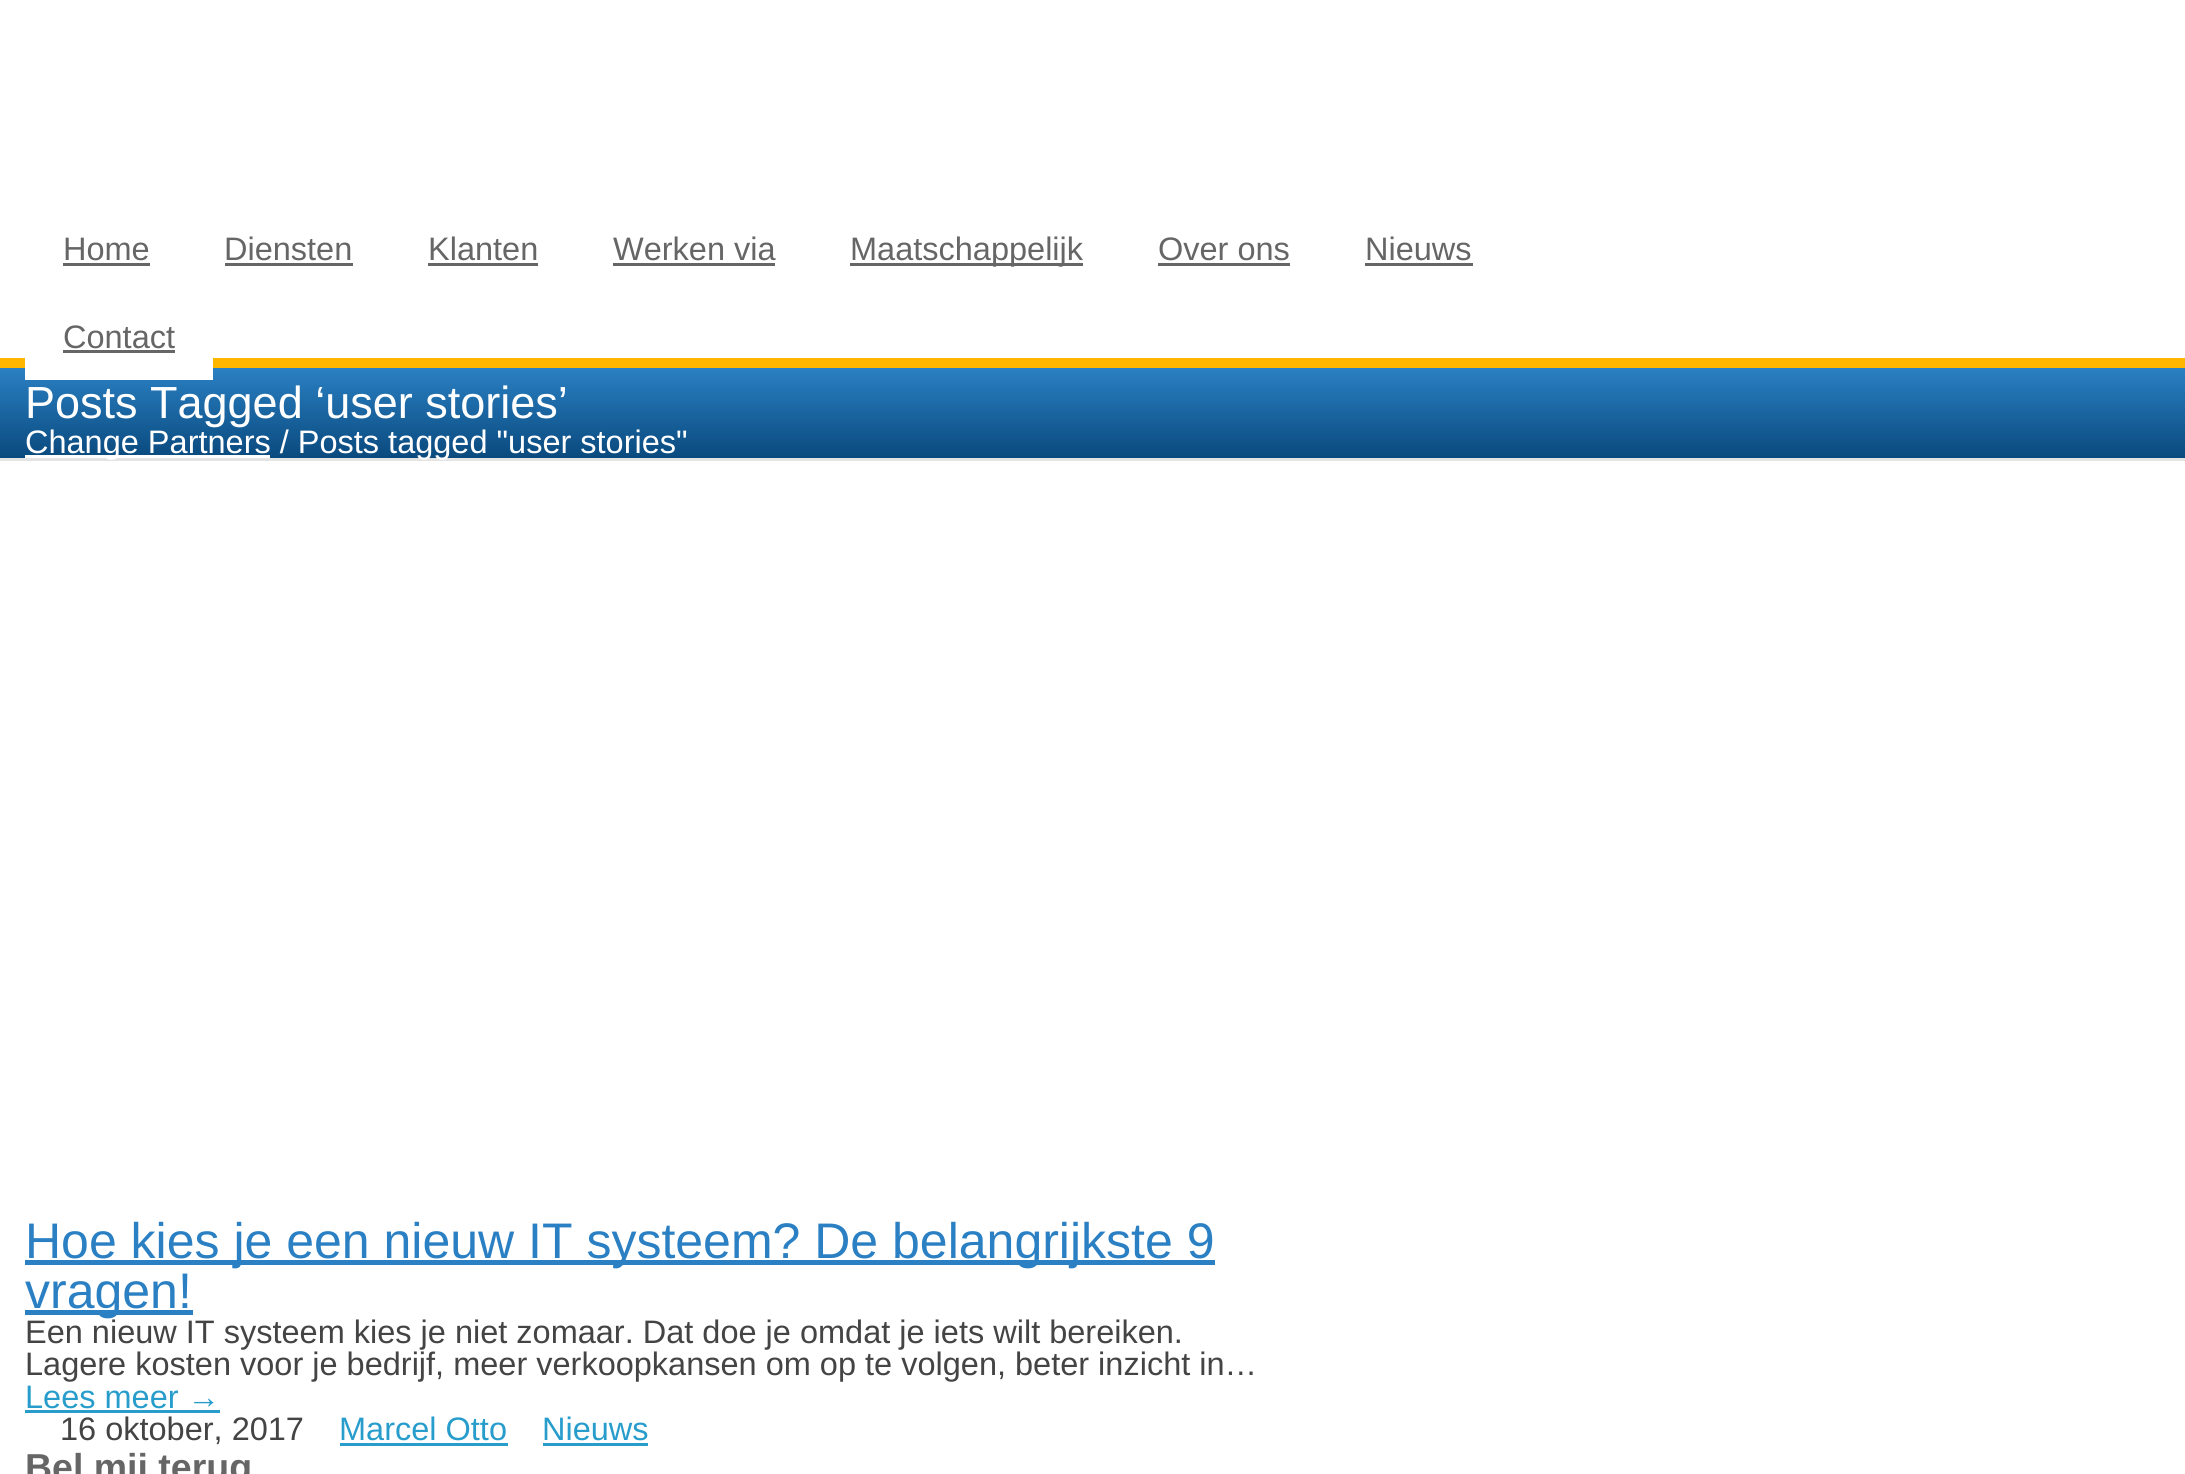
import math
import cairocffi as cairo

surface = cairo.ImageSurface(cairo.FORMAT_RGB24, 2185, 1474)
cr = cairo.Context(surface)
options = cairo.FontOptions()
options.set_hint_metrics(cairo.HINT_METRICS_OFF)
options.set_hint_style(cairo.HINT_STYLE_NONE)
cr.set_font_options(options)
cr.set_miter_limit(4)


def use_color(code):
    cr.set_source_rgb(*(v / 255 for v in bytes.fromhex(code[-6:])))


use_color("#ffffff")
cr.paint()
cr.select_font_face("Liberation Sans")
cr.set_font_size(32.5)
use_color("#666666")
cr.move_to(63, 260)
cr.show_text("Home")
cr.rectangle(63, 263, 87, 3)
cr.fill()
cr.move_to(224, 260)
cr.show_text("Diensten")
cr.rectangle(225, 263, 128, 3)
cr.fill()
cr.move_to(428, 260)
cr.show_text("Klanten")
cr.rectangle(428, 263, 110, 3)
cr.fill()
cr.move_to(613, 260)
cr.show_text("Werken via")
cr.rectangle(613, 263, 162, 3)
cr.fill()
cr.rectangle(850, 263, 233, 3)
cr.fill()
cr.move_to(850, 260)
cr.show_text("Maatschappelijk")
cr.move_to(1158, 260)
cr.show_text("Over ons")
cr.rectangle(1158, 263, 132, 3)
cr.fill()
cr.move_to(1365, 260)
cr.show_text("Nieuws")
cr.rectangle(1365, 263, 108, 3)
cr.fill()
gradient = cairo.LinearGradient(1093, 458, 1093, 368)
gradient.add_color_stop_rgba(0, 0.039, 0.29, 0.494, 1)
gradient.add_color_stop_rgba(1, 0.165, 0.502, 0.765, 1)
cr.set_source(gradient)
cr.rectangle(0, 368, 2185, 90)
cr.fill()
use_color("#ffb600")
cr.rectangle(0, 358, 2185, 10)
cr.fill()
use_color("#ffffff")
cr.rectangle(25, 358, 188, 22)
cr.fill()
use_color("#666666")
cr.move_to(63, 348)
cr.show_text("Contact")
cr.rectangle(63, 350, 112, 3)
cr.fill()
use_color("#e4e4e4")
cr.rectangle(0, 458, 2185, 3)
cr.fill()
cr.set_font_size(45)
use_color("#ffffff")
cr.move_to(25, 418)
cr.show_text("Posts Tagged ‘user stories’")
cr.rectangle(25, 455, 245, 3)
cr.fill()
cr.set_font_size(32.5)
cr.move_to(25, 453)
cr.show_text("Change Partners / Posts tagged \"user stories\"")
use_color("#2a80c3")
cr.rectangle(25, 1260, 1190, 5)
cr.fill()
cr.set_font_size(50)
cr.move_to(25, 1258)
cr.show_text("Hoe kies je een nieuw IT systeem? De belangrijkste 9")
cr.rectangle(25, 1310, 168, 5)
cr.fill()
cr.move_to(25, 1308)
cr.show_text("vragen!")
cr.set_font_size(32.5)
use_color("#444444")
cr.move_to(25, 1343)
cr.show_text("Een nieuw IT systeem kies je niet zomaar. Dat doe je omdat je iets wilt bereiken.")
cr.move_to(25, 1375)
cr.show_text("Lagere kosten voor je bedrijf, meer verkoopkansen om op te volgen, beter inzicht in…")
use_color("#289dcc")
cr.move_to(25, 1408)
cr.show_text("Lees meer →")
cr.rectangle(25, 1410, 195, 3)
cr.fill()
use_color("#444444")
cr.move_to(60, 1440)
cr.show_text("16 oktober, 2017")
use_color("#289dcc")
cr.move_to(339, 1440)
cr.show_text("Marcel Otto")
cr.rectangle(340, 1443, 168, 3)
cr.fill()
cr.move_to(542, 1440)
cr.show_text("Nieuws")
cr.rectangle(543, 1443, 105, 3)
cr.fill()
cr.select_font_face("Liberation Sans", cairo.FONT_SLANT_NORMAL, cairo.FONT_WEIGHT_BOLD)
cr.set_font_size(37.5)
use_color("#666666")
cr.move_to(25, 1480)
cr.show_text("Bel mij terug")
surface.write_to_png("result.png")
